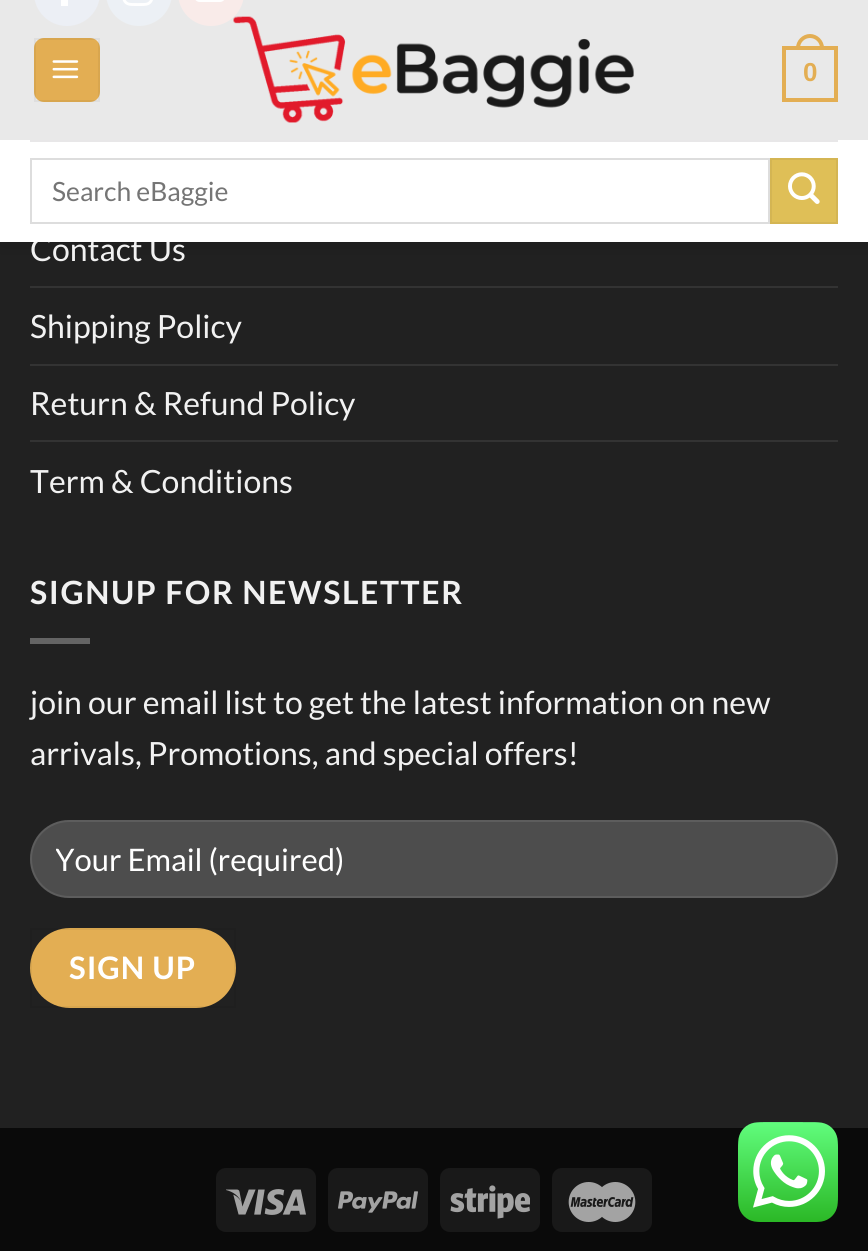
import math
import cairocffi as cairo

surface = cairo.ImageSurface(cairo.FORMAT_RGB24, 868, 1251)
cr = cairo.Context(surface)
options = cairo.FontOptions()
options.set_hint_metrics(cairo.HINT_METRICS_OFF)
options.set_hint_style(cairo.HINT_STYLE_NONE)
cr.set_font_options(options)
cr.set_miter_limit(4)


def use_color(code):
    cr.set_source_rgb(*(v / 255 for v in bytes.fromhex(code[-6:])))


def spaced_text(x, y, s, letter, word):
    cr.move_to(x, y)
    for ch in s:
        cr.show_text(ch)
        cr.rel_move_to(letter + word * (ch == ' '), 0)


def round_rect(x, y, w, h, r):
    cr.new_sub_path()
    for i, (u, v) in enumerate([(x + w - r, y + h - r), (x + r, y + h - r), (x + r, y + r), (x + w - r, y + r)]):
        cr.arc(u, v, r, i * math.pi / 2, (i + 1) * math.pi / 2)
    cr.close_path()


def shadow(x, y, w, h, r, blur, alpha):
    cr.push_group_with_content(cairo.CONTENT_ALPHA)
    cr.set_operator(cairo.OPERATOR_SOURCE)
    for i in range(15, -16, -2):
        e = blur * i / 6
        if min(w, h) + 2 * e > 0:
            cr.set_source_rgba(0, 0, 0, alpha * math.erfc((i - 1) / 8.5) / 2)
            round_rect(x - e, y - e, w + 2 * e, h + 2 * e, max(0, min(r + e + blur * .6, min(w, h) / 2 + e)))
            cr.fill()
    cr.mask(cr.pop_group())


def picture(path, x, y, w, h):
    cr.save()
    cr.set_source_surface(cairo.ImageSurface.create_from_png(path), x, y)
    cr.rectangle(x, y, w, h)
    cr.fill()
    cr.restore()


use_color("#212121")
cr.paint()
use_color("#3a589d")
round_rect(35, -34, 64, 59, 32)
cr.fill_preserve()
cr.stroke()
use_color("#ffffff")
cr.rectangle(61, 0, 7, 6)
cr.fill()
use_color("#3b6994")
round_rect(107, -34, 64, 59, 32)
cr.fill_preserve()
cr.stroke()
picture("img4.png", 122, 0, 31, 6)
use_color("#c33223")
round_rect(179, -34, 64, 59, 32)
cr.fill_preserve()
cr.stroke()
picture("img5.png", 195, 0, 29, 2)
cr.save()
cr.rectangle(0, 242, 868, 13)
cr.clip()
use_color("#000000")
shadow(2, 2, 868, 242, 0, 10, 0.15)
cr.restore()
cr.set_source_rgba(1, 1, 1, 0.9)
cr.rectangle(0, 0, 868, 140)
cr.fill()
use_color("#e3ae53")
round_rect(34, 38, 66, 64, 10)
cr.fill()
cr.rectangle(35, 39, 64, 62)
cr.set_source_rgba(0, 0, 0, 0.05)
cr.stroke()
picture("img1.png", 52, 60, 27, 19)
picture("img2.png", 233, 16, 401, 107)
cr.rectangle(784, 48, 52, 52)
use_color("#e3ae53")
cr.set_line_width(4)
cr.stroke()
cr.set_fill_rule(cairo.FILL_RULE_EVEN_ODD)
cr.new_path()
cr.move_to(810, 34)
cr.curve_to(817.5, 34, 824, 40.5, 824, 48)
cr.line_to(824, 50)
cr.line_to(796, 50)
cr.line_to(796, 48)
cr.curve_to(796, 40.5, 802.5, 34, 810, 34)
cr.close_path()
cr.move_to(810, 38)
cr.curve_to(815.5, 38, 820, 42.5, 820, 48)
cr.line_to(820, 50)
cr.line_to(800, 50)
cr.line_to(800, 48)
cr.curve_to(800, 42.5, 804.5, 38, 810, 38)
cr.close_path()
cr.fill()
cr.select_font_face("Liberation Sans", cairo.FONT_SLANT_NORMAL, cairo.FONT_WEIGHT_BOLD)
cr.set_font_size(26)
cr.move_to(803, 81)
cr.show_text("0")
cr.select_font_face("Lato")
cr.set_font_size(32)
use_color("#f1f1f1")
cr.move_to(30, 261)
cr.show_text("Contact Us")
use_color("#ffffff")
cr.rectangle(0, 140, 868, 102)
cr.fill()
use_color("#e8e7e8")
cr.rectangle(30, 140, 808, 2)
cr.fill()
cr.rectangle(31, 159, 738, 64)
use_color("#dddddd")
cr.set_line_width(2)
cr.stroke()
cr.set_font_size(26.5)
use_color("#757575")
cr.move_to(52, 201)
cr.show_text("Search eBaggie")
use_color("#dfbf57")
cr.rectangle(771, 159, 66, 64)
cr.fill_preserve()
use_color("#d4b553")
cr.stroke()
picture("img3.png", 788, 172, 32, 32)
use_color("#333333")
cr.rectangle(30, 286, 808, 2)
cr.fill()
cr.set_font_size(32)
use_color("#f1f1f1")
cr.move_to(30, 338)
cr.show_text("Shipping Policy")
use_color("#333333")
cr.rectangle(30, 364, 808, 2)
cr.fill()
use_color("#f1f1f1")
cr.move_to(30, 415)
cr.show_text("Return & Refund Policy")
use_color("#333333")
cr.rectangle(30, 440, 808, 2)
cr.fill()
use_color("#f1f1f1")
cr.move_to(30, 493)
cr.show_text("Term & Conditions")
cr.select_font_face("Lato", cairo.FONT_SLANT_NORMAL, cairo.FONT_WEIGHT_BOLD)
spaced_text(30, 604, "SIGNUP FOR NEWSLETTER", 1.6, 0)
use_color("#646464")
cr.rectangle(30, 638, 60, 6)
cr.fill()
cr.select_font_face("Lato")
use_color("#f1f1f1")
cr.move_to(30, 714)
cr.show_text("join our email list to get the latest information on new")
cr.move_to(30, 765)
cr.show_text("arrivals, Promotions, and special offers!")
use_color("#4d4d4d")
round_rect(30, 820, 808, 78, 39)
cr.fill()
round_rect(31, 821, 806, 76, 38)
cr.set_source_rgba(1, 1, 1, 0.09)
cr.stroke()
cr.save()
cr.set_fill_rule(cairo.FILL_RULE_WINDING)
cr.rectangle(56, 840, 756, 36)
cr.clip()
cr.set_font_size(31)
use_color("#ffffff")
cr.move_to(55, 871)
cr.show_text("Your Email (required)")
cr.restore()
use_color("#e3ae53")
round_rect(30, 928, 206, 80, 40)
cr.fill()
cr.rectangle(31, 929, 204, 78)
cr.set_source_rgba(0, 0, 0, 0.05)
cr.stroke()
cr.select_font_face("Lato", cairo.FONT_SLANT_NORMAL, cairo.FONT_WEIGHT_BOLD)
cr.set_font_size(31)
use_color("#ffffff")
spaced_text(69, 979, "SIGN UP", 1, 0)
use_color("#0a0a0a")
cr.rectangle(0, 1128, 868, 123)
cr.fill()
use_color("#191919")
round_rect(216, 1168, 100, 64, 10)
cr.fill()
picture("img6.png", 226, 1189, 80, 26)
round_rect(328, 1168, 100, 64, 10)
cr.fill()
picture("img7.png", 338, 1191, 80, 22)
round_rect(440, 1168, 100, 64, 10)
cr.fill()
picture("img8.png", 450, 1185, 80, 34)
round_rect(552, 1168, 100, 64, 10)
cr.fill()
picture("img9.png", 568, 1182, 68, 40)
picture("img10.png", 738, 1122, 100, 100)
surface.write_to_png("result.png")
